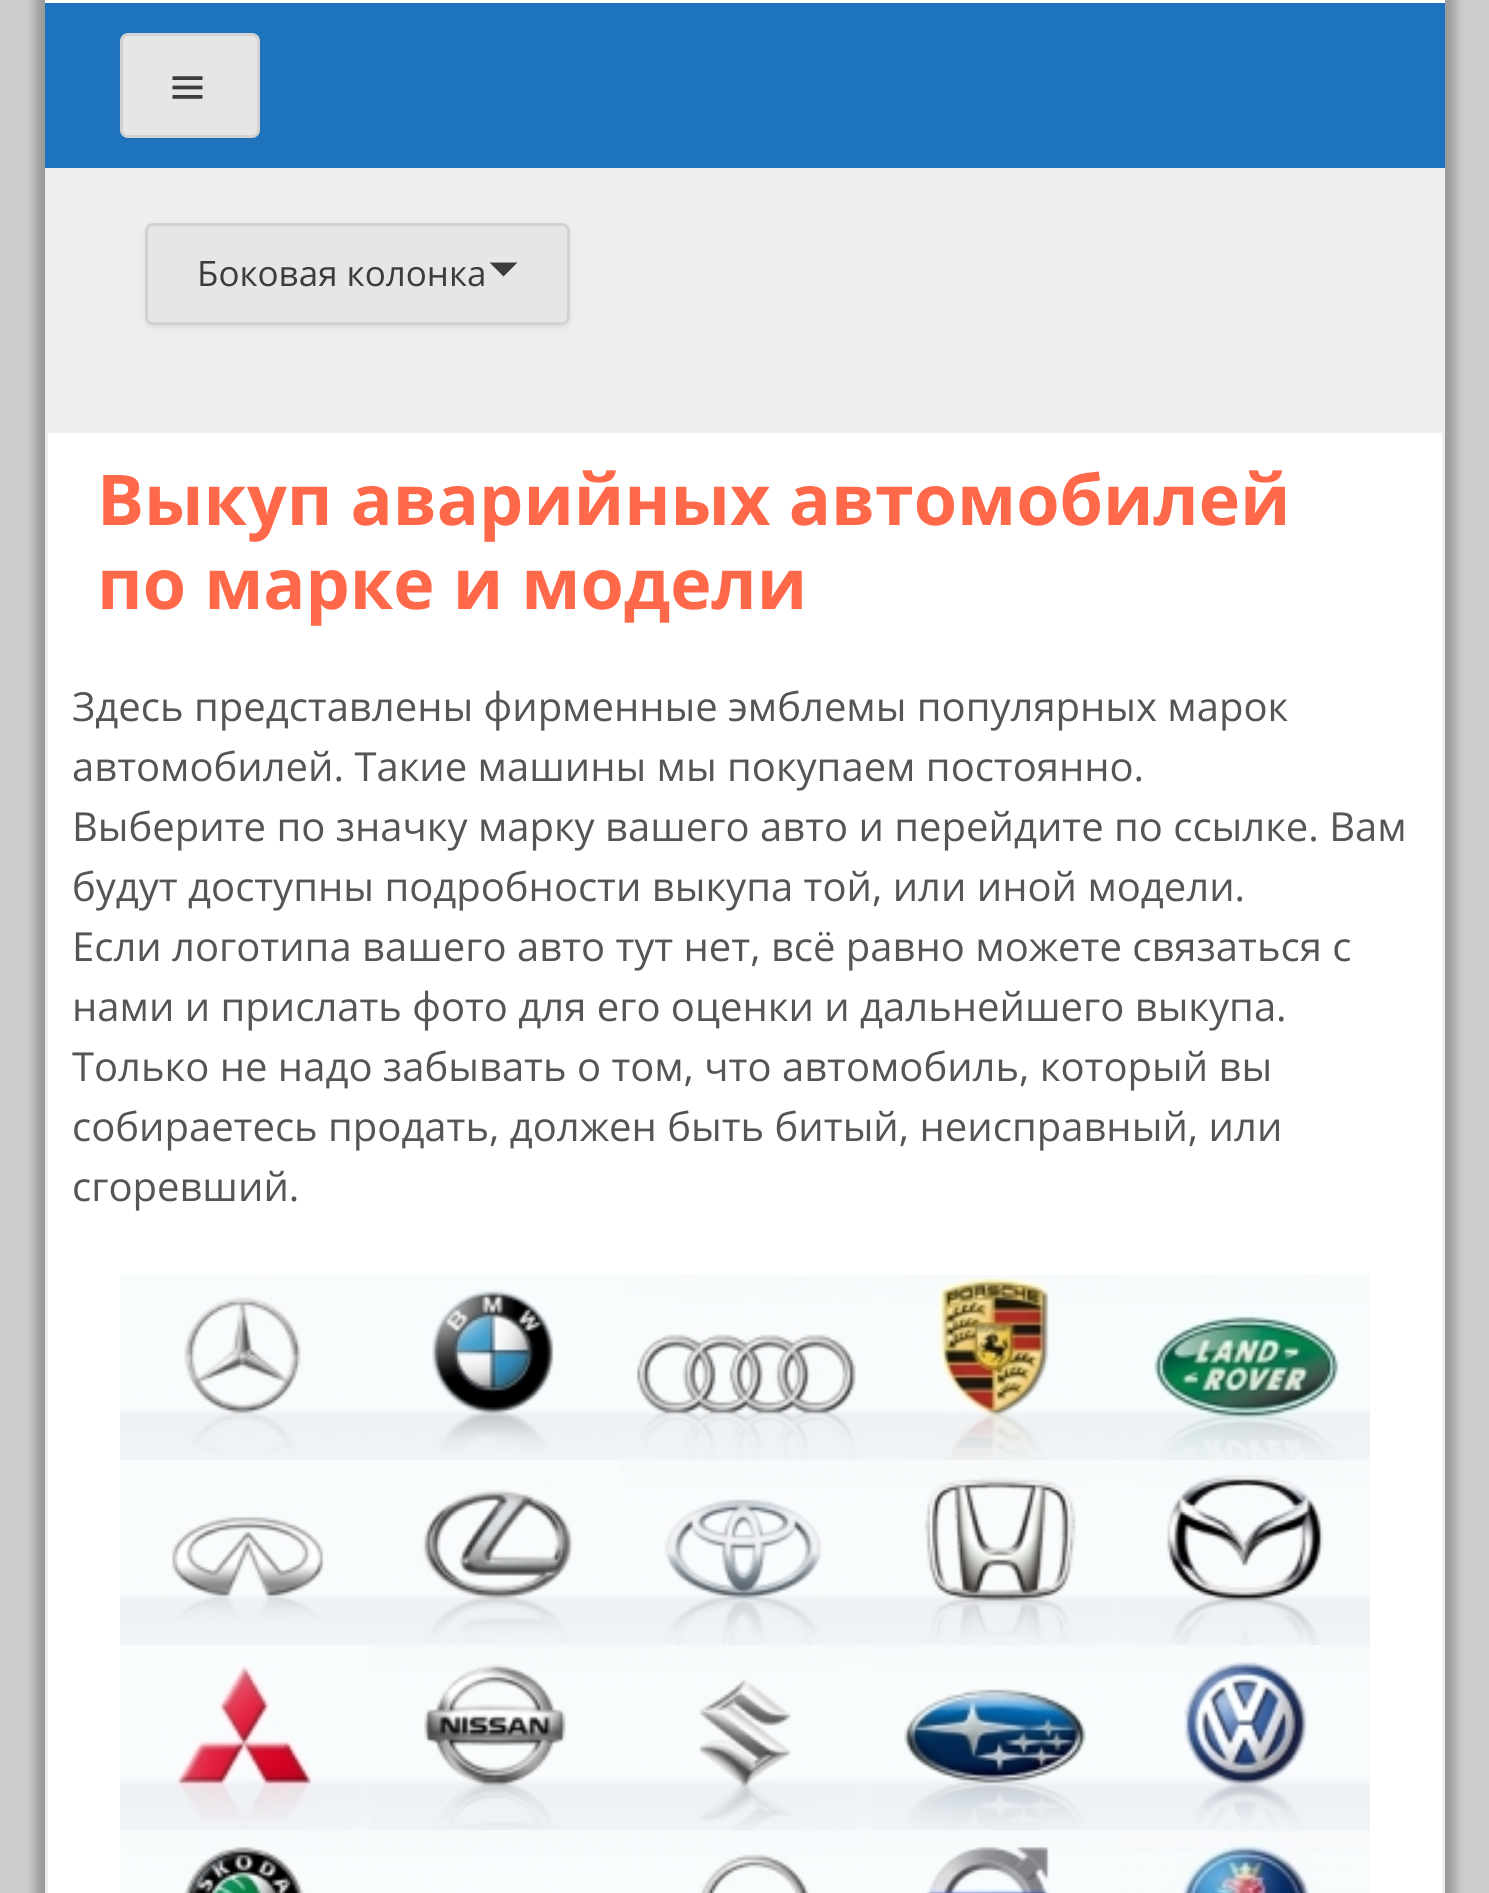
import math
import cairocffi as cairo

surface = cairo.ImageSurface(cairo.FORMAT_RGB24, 1489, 1893)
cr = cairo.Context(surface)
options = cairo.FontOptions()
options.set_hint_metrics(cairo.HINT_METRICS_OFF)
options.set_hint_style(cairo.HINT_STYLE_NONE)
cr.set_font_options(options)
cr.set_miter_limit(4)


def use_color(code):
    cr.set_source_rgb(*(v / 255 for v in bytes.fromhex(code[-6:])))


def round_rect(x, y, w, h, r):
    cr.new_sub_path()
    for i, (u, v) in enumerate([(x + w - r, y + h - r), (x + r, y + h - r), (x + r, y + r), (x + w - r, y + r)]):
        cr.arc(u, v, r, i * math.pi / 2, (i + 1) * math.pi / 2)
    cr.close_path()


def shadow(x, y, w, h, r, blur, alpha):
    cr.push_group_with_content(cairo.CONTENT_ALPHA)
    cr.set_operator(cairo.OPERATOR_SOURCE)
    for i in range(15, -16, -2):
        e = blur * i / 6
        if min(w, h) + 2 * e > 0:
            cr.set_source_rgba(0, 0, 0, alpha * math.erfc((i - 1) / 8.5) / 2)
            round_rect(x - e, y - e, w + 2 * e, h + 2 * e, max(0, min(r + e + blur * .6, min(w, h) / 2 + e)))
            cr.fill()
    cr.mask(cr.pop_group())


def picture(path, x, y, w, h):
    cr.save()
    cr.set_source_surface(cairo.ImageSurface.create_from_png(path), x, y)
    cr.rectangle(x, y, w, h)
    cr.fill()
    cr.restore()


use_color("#cccccc")
cr.paint()
use_color("#999999")
shadow(35, -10, 1420, 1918, 0, 5, 1)
use_color("#eeeeee")
cr.rectangle(45, 168, 1400, 262)
cr.fill()
use_color("#1e73be")
cr.rectangle(45, 3, 1400, 165)
cr.fill()
use_color("#ffffff")
cr.rectangle(45, 0, 1400, 3)
cr.fill()
use_color("#404040")
shadow(120, 35, 140, 105, 8, 2.5, 0.1)
use_color("#e6e6e6")
round_rect(121.5, 34.5, 137, 102, 6.5)
cr.fill_preserve()
use_color("#d2d2d2")
cr.set_line_width(3)
cr.stroke()
picture("img1.png", 172, 76, 31, 23)
use_color("#404040")
shadow(145, 225, 425, 103, 8, 2.5, 0.1)
use_color("#e6e6e6")
round_rect(146.5, 224.5, 422, 99, 6.5)
cr.fill_preserve()
use_color("#d2d2d2")
cr.stroke()
cr.select_font_face("Open Sans")
cr.set_font_size(35)
use_color("#3c3c3c")
cr.move_to(197, 286)
cr.show_text("Боковая колонка")
cr.new_path()
cr.move_to(489.5, 262.5)
cr.line_to(517.5, 262.5)
cr.line_to(503.5, 276.5)
cr.close_path()
cr.fill()
use_color("#ffffff")
cr.rectangle(46.5, 431.5, 1397, 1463)
cr.fill_preserve()
use_color("#eeeeee")
cr.stroke()
cr.select_font_face("Open Sans", cairo.FONT_SLANT_NORMAL, cairo.FONT_WEIGHT_BOLD)
cr.set_font_size(70)
use_color("#ff6848")
cr.move_to(97, 525)
cr.show_text("Выкуп аварийных автомобилей")
cr.move_to(97, 609)
cr.show_text("по марке и модели")
cr.select_font_face("Open Sans")
cr.set_font_size(40)
use_color("#555555")
cr.move_to(72, 721)
cr.show_text("Здесь представлены фирменные эмблемы популярных марок")
cr.move_to(72, 781)
cr.show_text("автомобилей. Такие машины мы покупаем постоянно.")
cr.move_to(72, 841)
cr.show_text("Выберите по значку марку вашего авто и перейдите по ссылке. Вам")
cr.move_to(72, 901)
cr.show_text("будут доступны подробности выкупа той, или иной модели.")
cr.move_to(72, 961)
cr.show_text("Если логотипа вашего авто тут нет, всё равно можете связаться с")
cr.move_to(72, 1021)
cr.show_text("нами и прислать фото для его оценки и дальнейшего выкупа.")
cr.move_to(72, 1081)
cr.show_text("Только не надо забывать о том, что автомобиль, который вы")
cr.move_to(72, 1141)
cr.show_text("собираетесь продать, должен быть битый, неисправный, или")
cr.move_to(72, 1201)
cr.show_text("сгоревший.")
picture("img2.png", 120, 1275, 250, 185)
picture("img3.png", 370, 1275, 250, 185)
picture("img4.png", 620, 1275, 250, 185)
picture("img5.png", 870, 1275, 250, 185)
picture("img6.png", 1120, 1275, 250, 185)
picture("img7.png", 120, 1460, 250, 185)
picture("img8.png", 370, 1460, 250, 185)
picture("img9.png", 620, 1460, 250, 185)
picture("img10.png", 870, 1460, 250, 185)
picture("img11.png", 1120, 1460, 250, 185)
picture("img12.png", 120, 1645, 250, 185)
picture("img13.png", 370, 1645, 250, 185)
picture("img14.png", 620, 1645, 250, 185)
picture("img15.png", 870, 1645, 250, 185)
picture("img16.png", 1120, 1645, 250, 185)
picture("img17.png", 120, 1830, 250, 63)
picture("img18.png", 370, 1830, 250, 63)
picture("img19.png", 620, 1830, 250, 63)
picture("img20.png", 870, 1830, 250, 63)
picture("img21.png", 1120, 1830, 250, 63)
surface.write_to_png("result.png")
